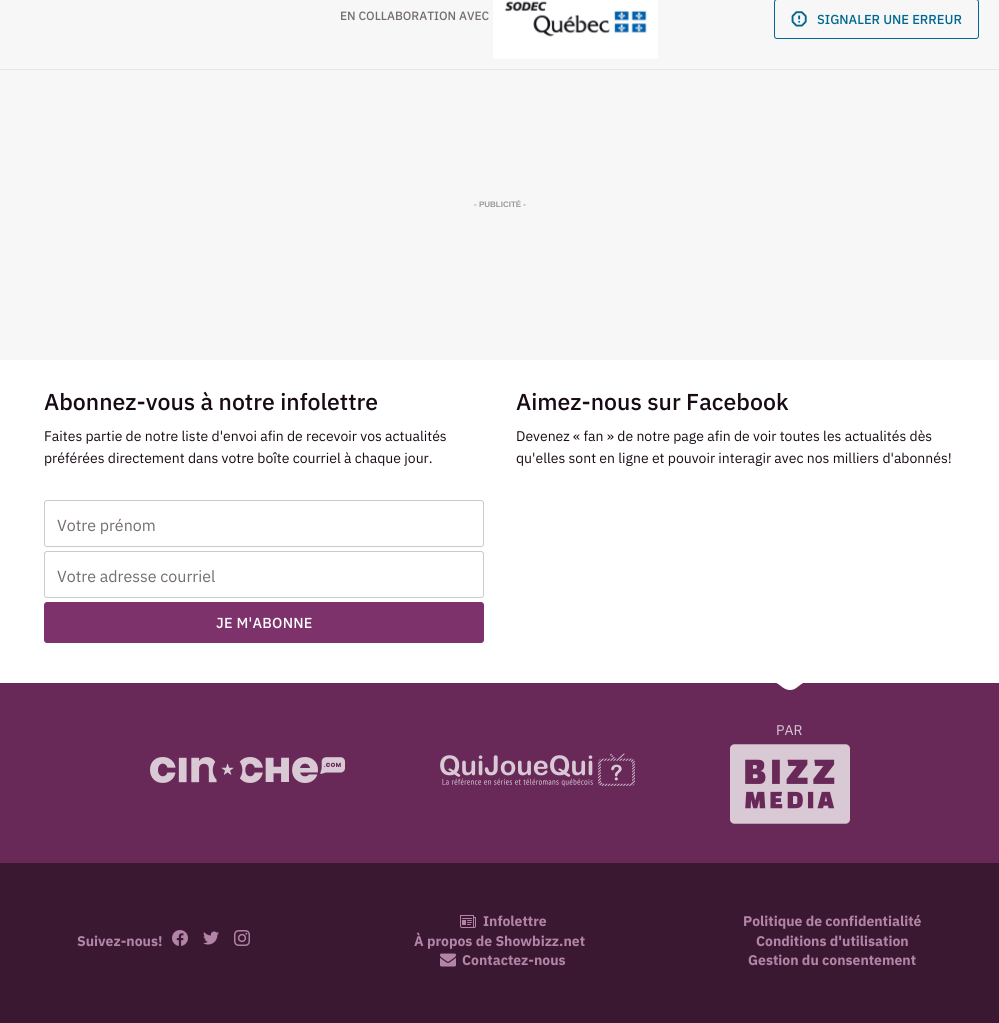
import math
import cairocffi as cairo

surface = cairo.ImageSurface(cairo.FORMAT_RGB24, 999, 1023)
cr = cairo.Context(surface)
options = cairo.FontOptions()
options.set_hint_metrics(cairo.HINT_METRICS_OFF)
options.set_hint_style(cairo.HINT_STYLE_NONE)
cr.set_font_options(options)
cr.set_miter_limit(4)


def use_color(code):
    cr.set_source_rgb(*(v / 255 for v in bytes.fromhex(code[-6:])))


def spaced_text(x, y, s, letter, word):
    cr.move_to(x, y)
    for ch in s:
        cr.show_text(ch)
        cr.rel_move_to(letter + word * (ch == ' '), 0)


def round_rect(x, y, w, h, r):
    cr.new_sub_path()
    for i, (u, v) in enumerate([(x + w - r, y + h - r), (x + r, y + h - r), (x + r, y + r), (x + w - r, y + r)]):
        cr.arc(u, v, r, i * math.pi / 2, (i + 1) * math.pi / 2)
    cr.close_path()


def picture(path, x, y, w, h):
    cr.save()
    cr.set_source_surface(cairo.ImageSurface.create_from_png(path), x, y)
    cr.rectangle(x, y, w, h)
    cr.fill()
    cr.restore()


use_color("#ffffff")
cr.paint()
use_color("#f7f7f7")
cr.rectangle(0, 0, 999, 69)
cr.fill()
use_color("#e8e7e8")
cr.rectangle(0, 69, 999, 1)
cr.fill()
cr.select_font_face("IBM Plex Sans Medium")
cr.set_font_size(12)
use_color("#746c72")
cr.move_to(340, 20)
cr.show_text("EN COLLABORATION AVEC")
picture("img1.png", 493, 0, 165, 59)
round_rect(774.5, -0.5, 204, 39, 2.5)
use_color("#006890")
cr.set_line_width(1)
cr.stroke()
picture("img2.png", 791, 11, 16, 16)
cr.set_font_size(13)
cr.move_to(817, 24)
cr.show_text("SIGNALER UNE ERREUR")
use_color("#f7f7f7")
cr.rectangle(0, 70, 999, 290)
cr.fill()
cr.select_font_face("Liberation Sans", cairo.FONT_SLANT_NORMAL, cairo.FONT_WEIGHT_BOLD)
cr.set_font_size(8)
use_color("#999999")
cr.move_to(474, 207)
cr.show_text("- PUBLICITÉ -")
cr.select_font_face("IBM Plex Sans Medium")
cr.set_font_size(23)
use_color("#180a14")
cr.move_to(44, 410)
cr.show_text("Abonnez-vous à notre infolettre")
cr.select_font_face("IBM Plex Sans")
cr.set_font_size(14)
cr.move_to(44, 441)
cr.show_text("Faites partie de notre liste d'envoi afin de recevoir vos actualités")
cr.move_to(44, 463)
cr.show_text("préférées directement dans votre boîte courriel à chaque jour.")
round_rect(44.5, 500.5, 439, 46, 2.5)
use_color("#cacaca")
cr.stroke()
cr.set_font_size(16)
use_color("#746c72")
cr.move_to(57, 531)
cr.show_text("Votre prénom")
round_rect(44.5, 551.5, 439, 46, 2.5)
use_color("#cacaca")
cr.stroke()
use_color("#746c72")
cr.move_to(57, 582)
cr.show_text("Votre adresse courriel")
use_color("#7e326c")
round_rect(44, 602, 440, 41, 3)
cr.fill()
cr.select_font_face("IBM Plex Sans Medium")
cr.set_font_size(14.5)
use_color("#fefefe")
spaced_text(216, 628, "JE M'ABONNE", 0.25, 0)
cr.set_font_size(23)
use_color("#180a14")
cr.move_to(516, 410)
cr.show_text("Aimez-nous sur Facebook")
cr.select_font_face("IBM Plex Sans")
cr.set_font_size(14)
cr.move_to(516, 441)
cr.show_text("Devenez « fan » de notre page afin de voir toutes les actualités dès")
cr.move_to(516, 463)
cr.show_text("qu'elles sont en ligne et pouvoir interagir avec nos milliers d'abonnés!")
use_color("#682959")
cr.rectangle(0, 683, 999, 180)
cr.fill()
cr.save()
cr.rectangle(772, 683, 36, 7)
cr.clip()
use_color("#ffffff")
cr.set_fill_rule(cairo.FILL_RULE_EVEN_ODD)
cr.new_path()
cr.move_to(808, 682)
cr.curve_to(799.5, 682, 798, 690, 790, 690)
cr.curve_to(782, 690, 779.5, 682, 772, 682)
cr.close_path()
cr.fill()
cr.restore()
use_color("#d9cad6")
cr.move_to(776, 735)
cr.show_text("PAR")
picture("img3.png", 730, 744, 120, 80)
picture("img4.png", 150, 757, 195, 26)
picture("img5.png", 440, 753, 195, 34)
use_color("#3b1832")
cr.rectangle(0, 863, 999, 160)
cr.fill()
cr.select_font_face("IBM Plex Sans", cairo.FONT_SLANT_NORMAL, cairo.FONT_WEIGHT_BOLD)
use_color("#b284a7")
cr.move_to(77, 946)
cr.show_text("Suivez-nous!")
picture("img6.png", 172, 930, 16, 16)
picture("img7.png", 203, 931, 16, 14)
picture("img8.png", 234, 930, 16, 16)
picture("img9.png", 460, 915, 16, 13)
cr.move_to(483, 926)
cr.show_text("Infolettre")
cr.move_to(414, 946)
cr.show_text("À propos de Showbizz.net")
picture("img10.png", 440, 953, 16, 14)
cr.move_to(462, 965)
cr.show_text("Contactez-nous")
cr.move_to(743, 926)
cr.show_text("Politique de confidentialité")
cr.move_to(756, 946)
cr.show_text("Conditions d'utilisation")
cr.move_to(748, 965)
cr.show_text("Gestion du consentement")
surface.write_to_png("result.png")
